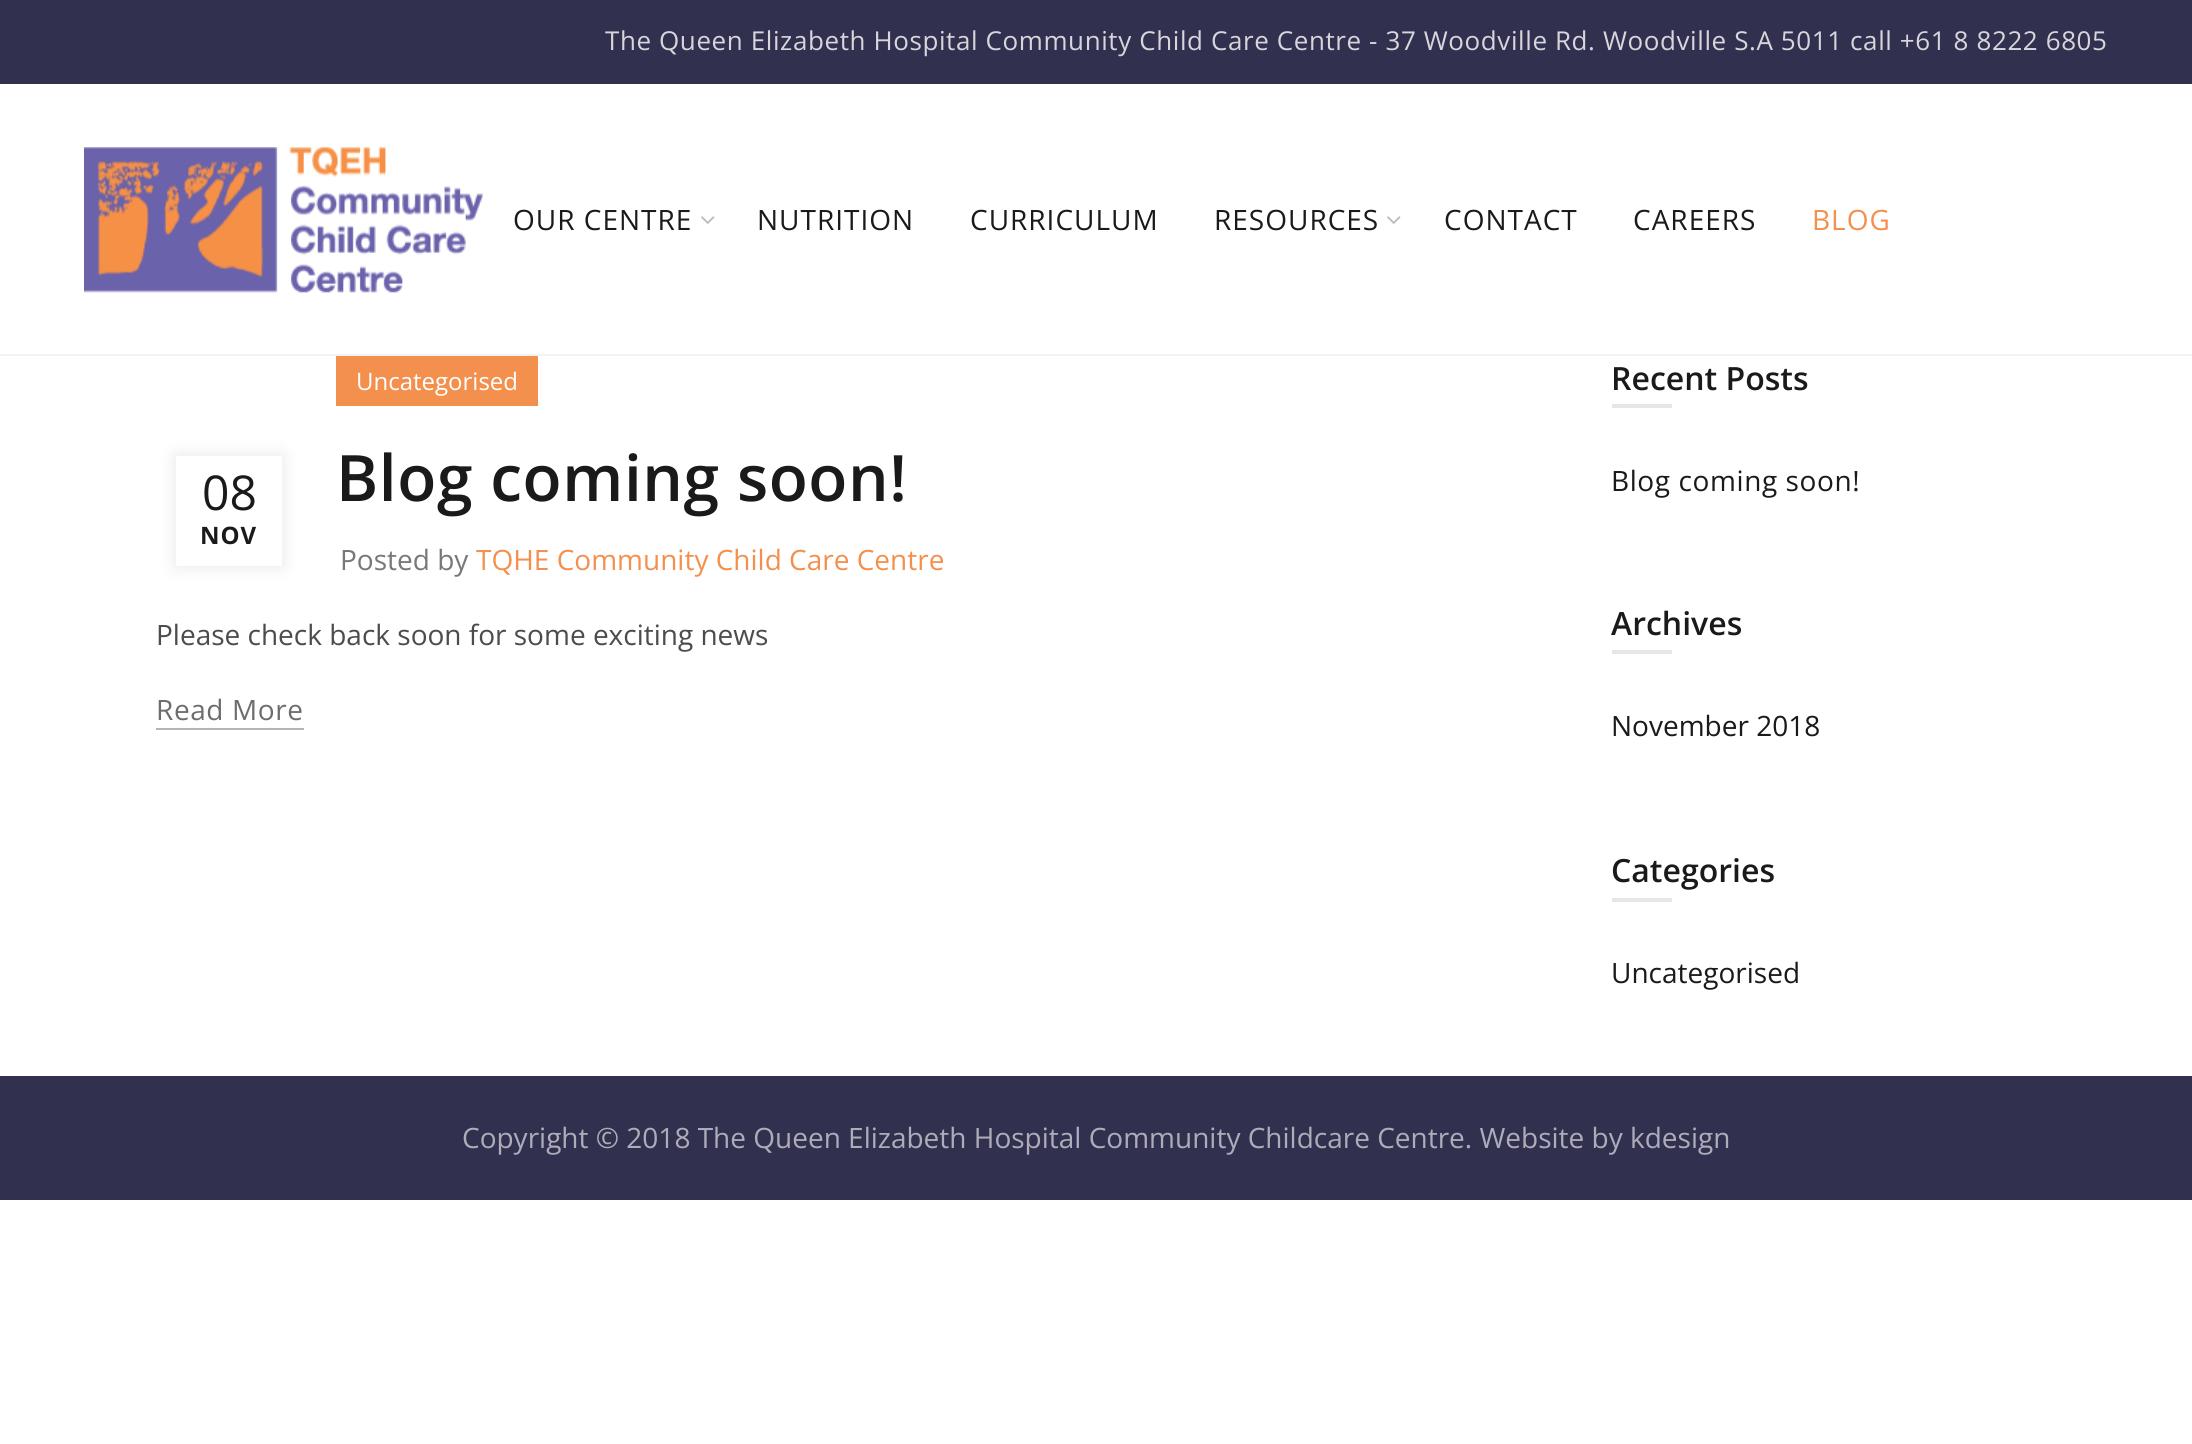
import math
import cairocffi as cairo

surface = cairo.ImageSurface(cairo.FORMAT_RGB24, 2192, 1444)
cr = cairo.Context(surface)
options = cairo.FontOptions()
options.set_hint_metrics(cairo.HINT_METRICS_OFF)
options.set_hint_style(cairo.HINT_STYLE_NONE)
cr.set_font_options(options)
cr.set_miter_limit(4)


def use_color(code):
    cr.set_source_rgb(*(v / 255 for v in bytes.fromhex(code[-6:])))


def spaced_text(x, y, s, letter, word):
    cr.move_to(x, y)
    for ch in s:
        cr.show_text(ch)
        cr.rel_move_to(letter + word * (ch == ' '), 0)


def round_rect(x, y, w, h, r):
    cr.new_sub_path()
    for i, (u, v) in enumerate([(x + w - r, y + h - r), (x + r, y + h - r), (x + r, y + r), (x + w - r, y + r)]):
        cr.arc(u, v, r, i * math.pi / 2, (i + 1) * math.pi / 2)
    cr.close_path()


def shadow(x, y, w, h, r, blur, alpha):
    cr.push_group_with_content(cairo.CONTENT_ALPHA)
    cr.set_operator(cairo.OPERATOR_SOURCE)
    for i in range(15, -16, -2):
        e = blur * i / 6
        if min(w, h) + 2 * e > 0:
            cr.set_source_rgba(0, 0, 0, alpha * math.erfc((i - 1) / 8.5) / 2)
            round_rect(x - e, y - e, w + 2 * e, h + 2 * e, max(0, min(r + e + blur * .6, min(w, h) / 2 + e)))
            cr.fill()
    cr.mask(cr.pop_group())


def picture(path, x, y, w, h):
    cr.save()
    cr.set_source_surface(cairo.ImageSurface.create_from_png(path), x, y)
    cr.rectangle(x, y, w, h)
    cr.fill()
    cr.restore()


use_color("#ffffff")
cr.paint()
use_color("#31304f")
cr.rectangle(0, 0, 2192, 84)
cr.fill()
cr.select_font_face("Open Sans")
cr.set_font_size(26)
use_color("#d6d6dc")
spaced_text(605, 50, "The Queen Elizabeth Hospital Community Child Care Centre - 37 Woodville Rd. Woodville S.A 5011 call +61 8 8222 6805", 0.6, 0)
picture("img1.png", 84, 147, 399, 146)
cr.set_font_size(28)
use_color("#1b1919")
spaced_text(513, 230, "OUR CENTRE", 1, 0)
picture("img2.png", 701, 216, 14, 8)
spaced_text(757, 230, "NUTRITION", 1, 0)
spaced_text(970, 230, "CURRICULUM", 1, 0)
spaced_text(1214, 230, "RESOURCES", 1, 0)
picture("img2.png", 1387, 216, 14, 8)
spaced_text(1444, 230, "CONTACT", 1, 0)
spaced_text(1633, 230, "CAREERS", 1, 0)
use_color("#f4904e")
spaced_text(1812, 230, "BLOG", 1, 0)
use_color("#f2f2f2")
cr.rectangle(0, 354, 2192, 2)
cr.fill()
cr.save()
cr.set_fill_rule(cairo.FILL_RULE_EVEN_ODD)
cr.new_path()
cr.move_to(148, 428)
cr.line_to(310, 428)
cr.line_to(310, 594)
cr.line_to(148, 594)
cr.close_path()
cr.move_to(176, 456)
cr.line_to(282, 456)
cr.line_to(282, 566)
cr.line_to(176, 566)
cr.close_path()
cr.clip()
use_color("#000000")
shadow(176, 456, 106, 110, 0, 9, 0.1)
cr.restore()
cr.set_font_size(48)
use_color("#1b1919")
cr.move_to(202, 510)
cr.show_text("08")
cr.select_font_face("Open Sans", cairo.FONT_SLANT_NORMAL, cairo.FONT_WEIGHT_BOLD)
cr.set_font_size(24)
spaced_text(200, 544, "NOV", 1, 0)
use_color("#f4904e")
cr.rectangle(336, 356, 202, 50)
cr.fill()
cr.select_font_face("Open Sans")
use_color("#ffffff")
cr.move_to(356, 390)
cr.show_text("Uncategorised")
cr.select_font_face("Open Sans SemiBold")
cr.set_font_size(64)
use_color("#1b1919")
spaced_text(336, 501, "Blog coming soon!", 0.6, 0)
cr.select_font_face("Open Sans")
cr.set_font_size(28)
use_color("#787878")
cr.move_to(340, 570)
cr.show_text("Posted by")
use_color("#f4904e")
cr.move_to(476, 570)
cr.show_text("TQHE Community Child Care Centre")
use_color("#4c4c4c")
cr.move_to(156, 645)
cr.show_text("Please check back soon for some exciting news")
use_color("#b5b5b5")
cr.rectangle(156, 728, 148, 2)
cr.fill()
use_color("#6d6d6d")
spaced_text(156, 720, "Read More", 0.6, 0)
cr.select_font_face("Open Sans SemiBold")
cr.set_font_size(32)
use_color("#1b1919")
cr.move_to(1611, 390)
cr.show_text("Recent Posts")
use_color("#e6e6e6")
cr.rectangle(1612, 404, 60, 4)
cr.fill()
cr.select_font_face("Open Sans")
cr.set_font_size(28)
use_color("#1b1919")
spaced_text(1611, 491, "Blog coming soon!", 0.6, 0)
cr.select_font_face("Open Sans SemiBold")
cr.set_font_size(32)
cr.move_to(1611, 635)
cr.show_text("Archives")
use_color("#e6e6e6")
cr.rectangle(1612, 650, 60, 4)
cr.fill()
cr.select_font_face("Open Sans")
cr.set_font_size(28)
use_color("#1b1919")
cr.move_to(1611, 736)
cr.show_text("November 2018")
cr.select_font_face("Open Sans SemiBold")
cr.set_font_size(32)
cr.move_to(1611, 882)
cr.show_text("Categories")
use_color("#e6e6e6")
cr.rectangle(1612, 898, 60, 4)
cr.fill()
cr.select_font_face("Open Sans")
cr.set_font_size(28)
use_color("#1b1919")
cr.move_to(1611, 983)
cr.show_text("Uncategorised")
use_color("#31304f")
cr.rectangle(0, 1076, 2192, 124)
cr.fill()
use_color("#adacb9")
cr.move_to(462, 1148)
cr.show_text("Copyright © 2018 The Queen Elizabeth Hospital Community Childcare Centre. Website by kdesign")
surface.write_to_png("result.png")
